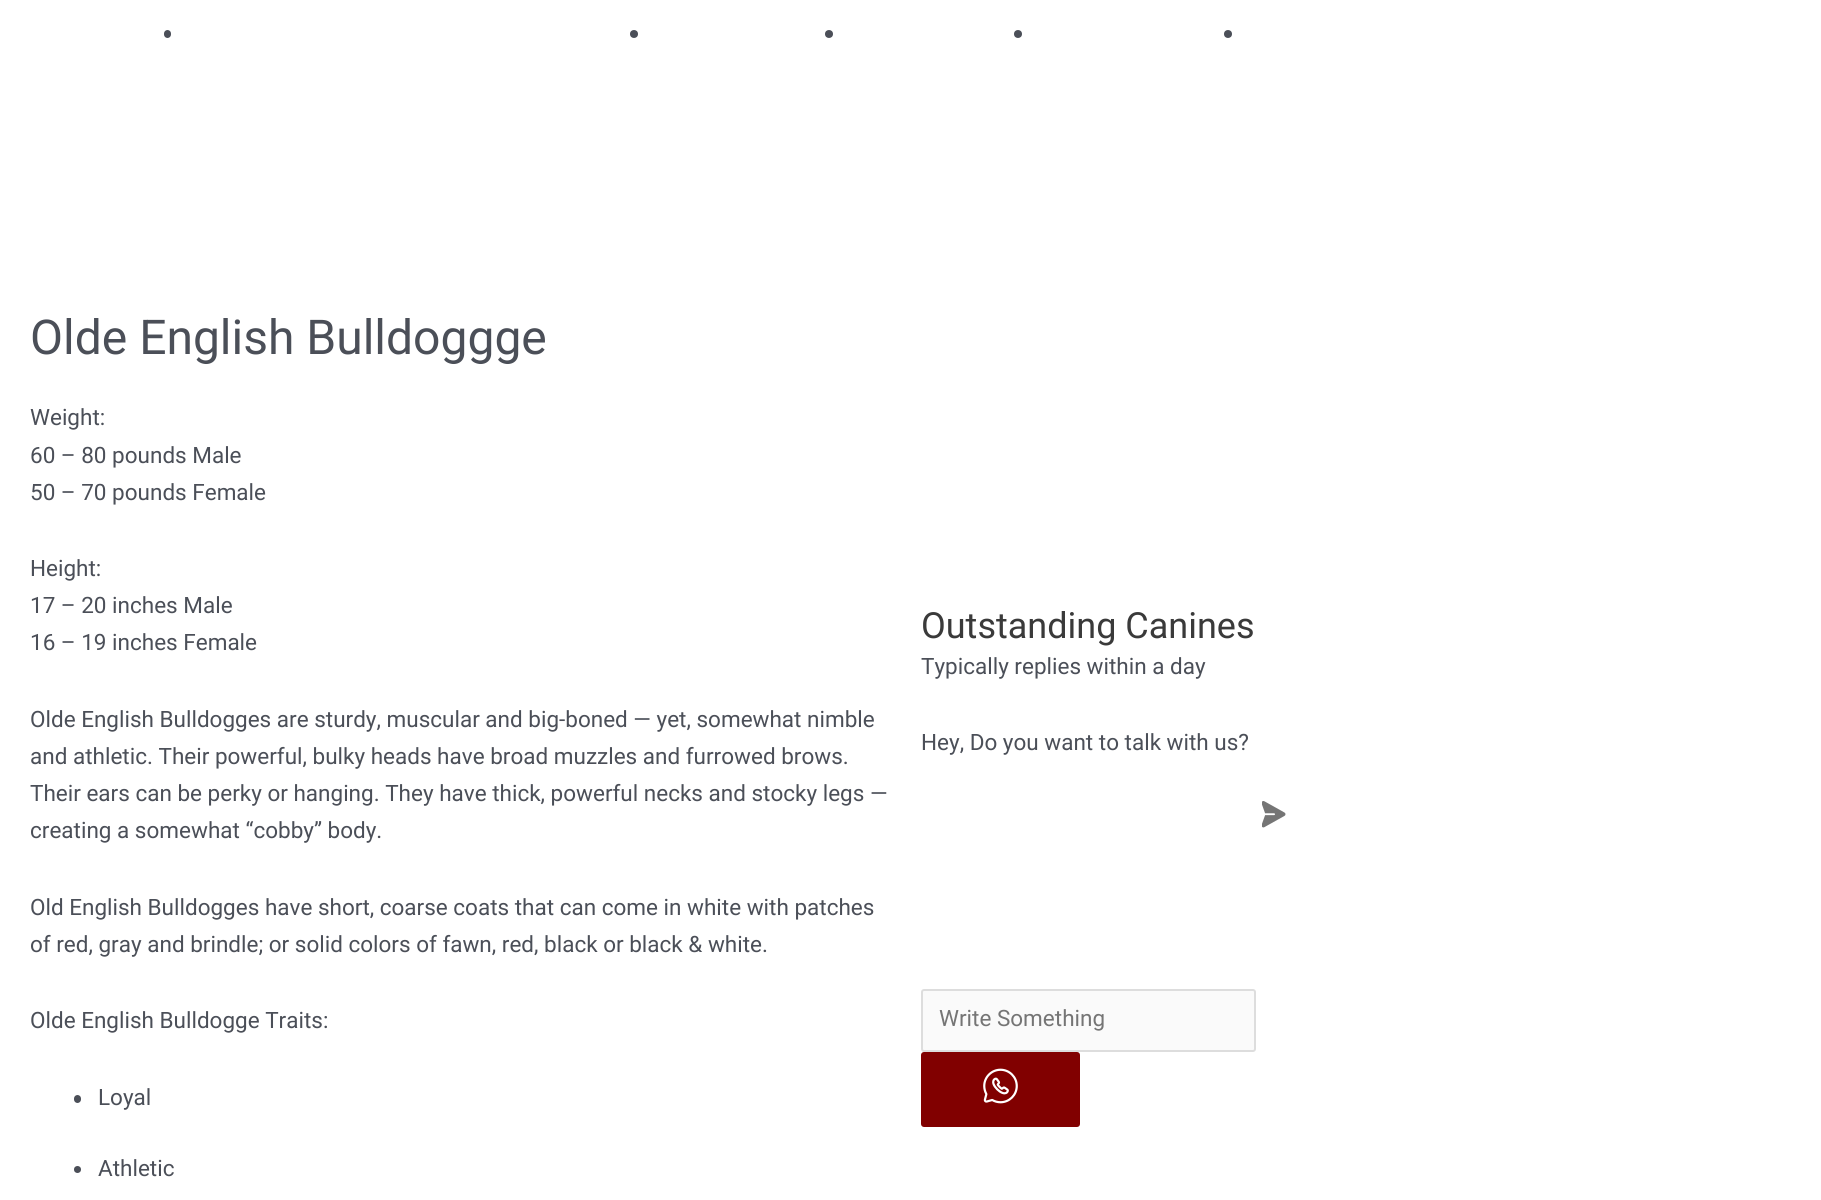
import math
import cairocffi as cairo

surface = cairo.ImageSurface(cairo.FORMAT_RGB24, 1821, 1200)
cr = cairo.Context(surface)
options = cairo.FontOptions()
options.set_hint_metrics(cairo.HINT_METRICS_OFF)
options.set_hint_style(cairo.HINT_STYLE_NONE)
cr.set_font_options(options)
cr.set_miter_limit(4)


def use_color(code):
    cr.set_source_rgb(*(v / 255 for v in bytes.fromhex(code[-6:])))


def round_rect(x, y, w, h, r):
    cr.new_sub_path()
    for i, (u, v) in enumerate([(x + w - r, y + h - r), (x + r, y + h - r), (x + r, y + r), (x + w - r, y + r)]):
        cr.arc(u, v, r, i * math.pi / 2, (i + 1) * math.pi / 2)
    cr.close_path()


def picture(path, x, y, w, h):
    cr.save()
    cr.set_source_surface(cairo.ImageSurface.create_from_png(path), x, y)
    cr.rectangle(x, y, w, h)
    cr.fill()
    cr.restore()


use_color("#ffffff")
cr.paint()
use_color("#4b4f58")
round_rect(164, 30, 7, 8, 3.5)
cr.fill()
cr.arc(634, 34, 4, 0, 2 * math.pi)
cr.fill()
cr.arc(829, 34, 4, 0, 2 * math.pi)
cr.fill()
cr.arc(1018, 34, 4, 0, 2 * math.pi)
cr.fill()
cr.arc(1228, 34, 4, 0, 2 * math.pi)
cr.fill()
cr.select_font_face("Roboto")
cr.set_font_size(48)
cr.move_to(30, 354)
cr.show_text("Olde English Bulldoggge")
cr.set_font_size(22.5)
cr.move_to(30, 425)
cr.show_text("Weight:")
cr.move_to(30, 463)
cr.show_text("60 – 80 pounds Male")
cr.move_to(30, 500)
cr.show_text("50 – 70 pounds Female")
cr.move_to(30, 576)
cr.show_text("Height:")
cr.move_to(30, 613)
cr.show_text("17 – 20 inches Male")
cr.move_to(30, 650)
cr.show_text("16 – 19 inches Female")
cr.move_to(30, 727)
cr.show_text("Olde English Bulldogges are sturdy, muscular and big-boned — yet, somewhat nimble")
cr.move_to(30, 764)
cr.show_text("and athletic. Their powerful, bulky heads have broad muzzles and furrowed brows.")
cr.move_to(30, 801)
cr.show_text("Their ears can be perky or hanging. They have thick, powerful necks and stocky legs —")
cr.move_to(30, 838)
cr.show_text("creating a somewhat “cobby” body.")
cr.move_to(30, 915)
cr.show_text("Old English Bulldogges have short, coarse coats that can come in white with patches")
cr.move_to(30, 952)
cr.show_text("of red, gray and brindle; or solid colors of fawn, red, black or black & white.")
cr.move_to(30, 1028)
cr.show_text("Olde English Bulldogge Traits:")
round_rect(74, 1095, 7, 8, 3.5)
cr.fill()
cr.move_to(98, 1105)
cr.show_text("Loyal")
cr.new_path()
cr.arc(77.5, 1169.5, 3.5, 0, 2 * math.pi)
cr.fill()
cr.move_to(98, 1176)
cr.show_text("Athletic")
cr.set_font_size(36)
use_color("#3a3a3a")
cr.move_to(921, 638)
cr.show_text("Outstanding Canines")
cr.set_font_size(22.5)
use_color("#4b4f58")
cr.move_to(921, 674)
cr.show_text("Typically replies within a day")
cr.move_to(921, 750)
cr.show_text("Hey, Do you want to talk with us?")
picture("img1.png", 1262, 801, 24, 27)
use_color("#fafafa")
round_rect(922, 990, 333, 61, 2)
cr.fill_preserve()
use_color("#dddddd")
cr.stroke()
use_color("#757575")
cr.move_to(939, 1026)
cr.show_text("Write Something")
use_color("#810000")
round_rect(921, 1052, 159, 75, 3)
cr.fill()
picture("img2.png", 983, 1068, 35, 36)
surface.write_to_png("result.png")
